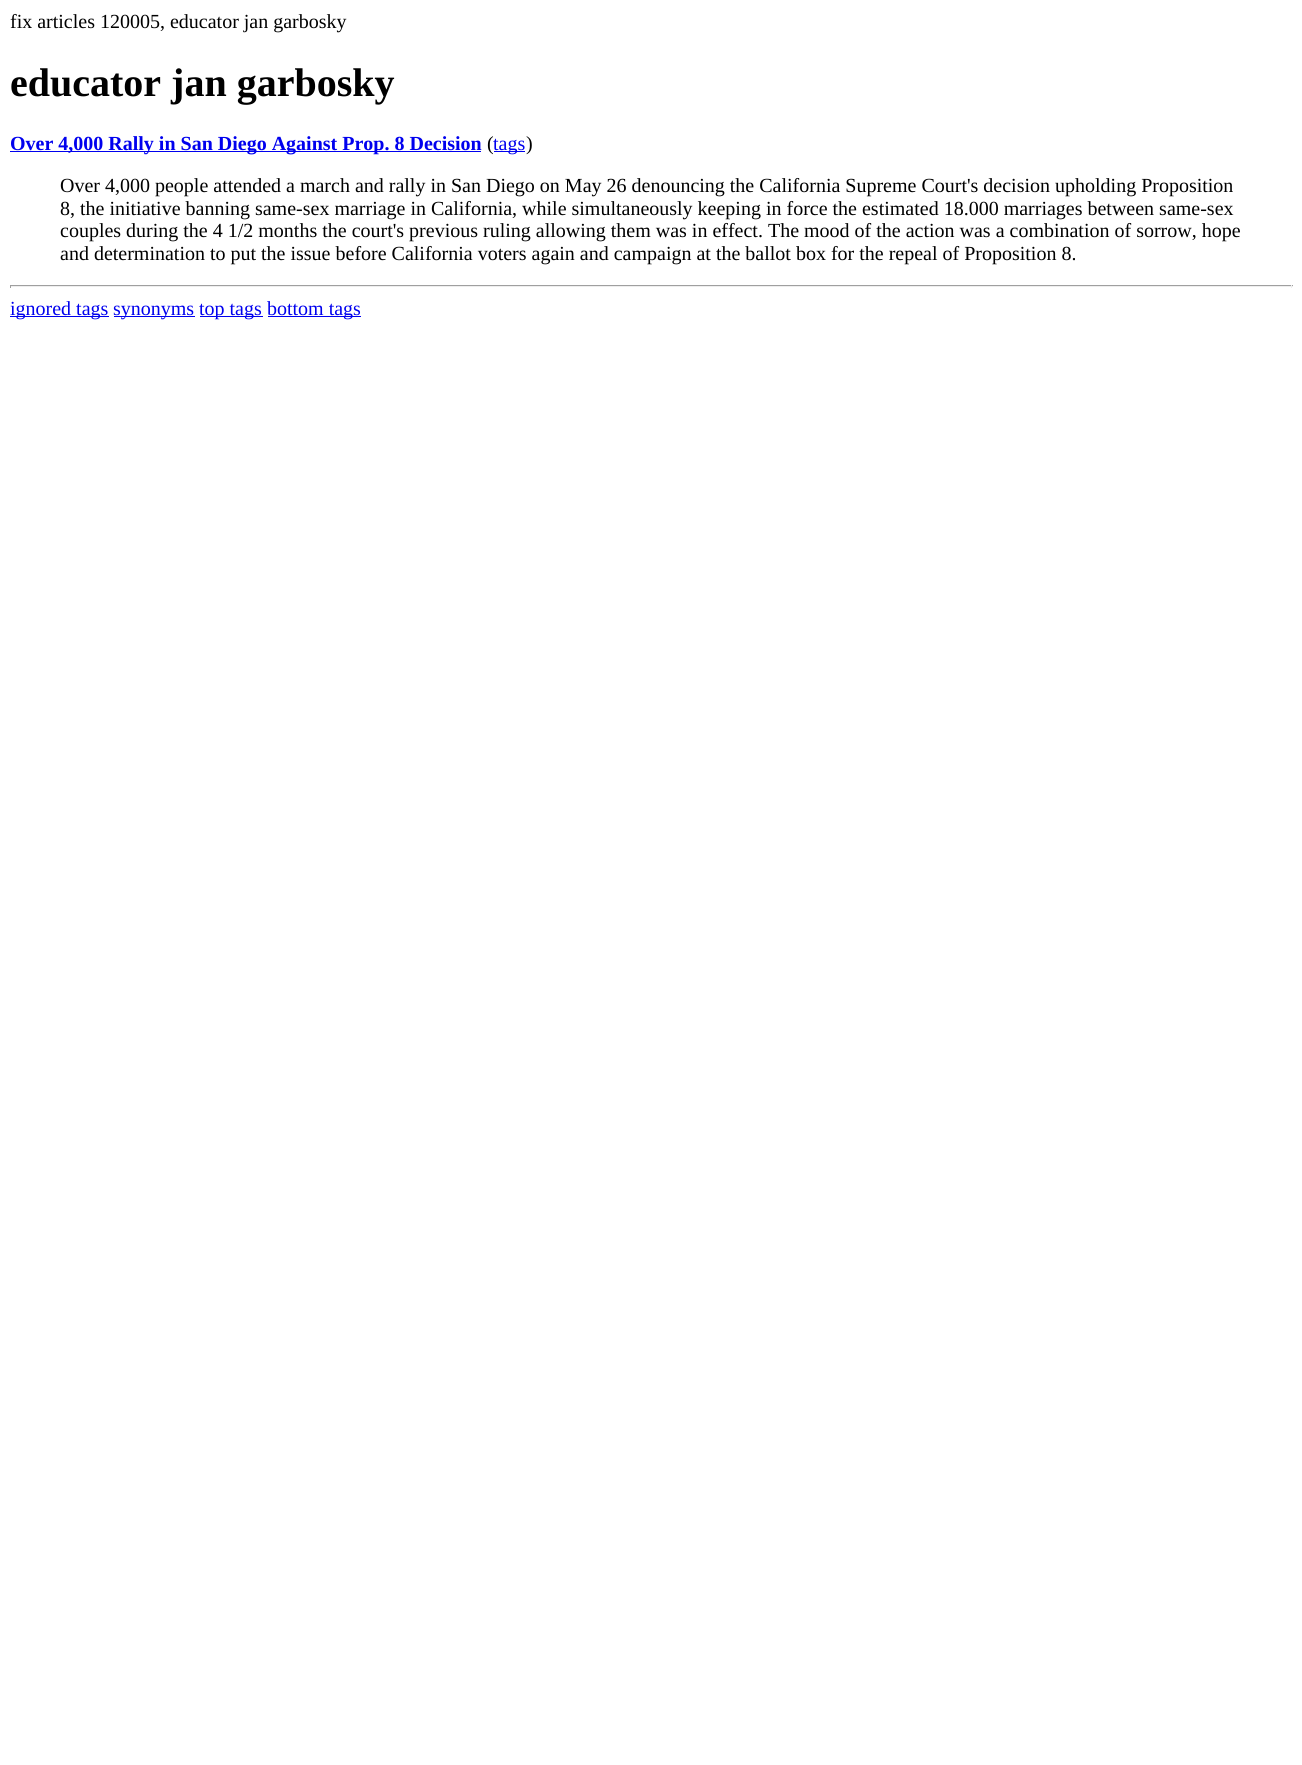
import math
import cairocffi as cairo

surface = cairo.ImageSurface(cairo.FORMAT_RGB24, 1302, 1765)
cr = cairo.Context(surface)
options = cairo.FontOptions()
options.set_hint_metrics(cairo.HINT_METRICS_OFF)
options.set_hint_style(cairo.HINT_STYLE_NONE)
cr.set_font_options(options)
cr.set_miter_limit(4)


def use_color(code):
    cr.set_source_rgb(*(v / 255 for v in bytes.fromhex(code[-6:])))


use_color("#ffffff")
cr.paint()
cr.select_font_face("Liberation Serif")
cr.set_font_size(20)
use_color("#000000")
cr.move_to(10, 28)
cr.show_text("fix articles 120005, educator jan garbosky")
cr.select_font_face("Liberation Serif", cairo.FONT_SLANT_NORMAL, cairo.FONT_WEIGHT_BOLD)
cr.set_font_size(40)
cr.move_to(10, 96)
cr.show_text("educator jan garbosky")
use_color("#0000ee")
cr.rectangle(10, 151, 471, 1)
cr.fill()
cr.set_font_size(20)
cr.move_to(10, 150)
cr.show_text("Over 4,000 Rally in San Diego Against Prop. 8 Decision")
cr.select_font_face("Liberation Serif")
use_color("#000000")
cr.move_to(487, 150)
cr.show_text("(")
use_color("#0000ee")
cr.rectangle(494, 151, 31, 1)
cr.fill()
cr.move_to(493, 150)
cr.show_text("tags")
use_color("#000000")
cr.move_to(526, 150)
cr.show_text(")")
cr.move_to(60, 192)
cr.show_text("Over 4,000 people attended a march and rally in San Diego on May 26 denouncing the California Supreme Court's decision upholding Proposition")
cr.move_to(60, 215)
cr.show_text("8, the initiative banning same-sex marriage in California, while simultaneously keeping in force the estimated 18.000 marriages between same-sex")
cr.move_to(60, 237)
cr.show_text("couples during the 4 1/2 months the court's previous ruling allowing them was in effect. The mood of the action was a combination of sorrow, hope")
cr.move_to(60, 260)
cr.show_text("and determination to put the issue before California voters again and campaign at the ballot box for the repeal of Proposition 8.")
use_color("#9f9f9f")
cr.rectangle(10, 285, 1283, 1)
cr.fill()
use_color("#eeeeee")
cr.rectangle(1291, 285, 1, 3)
cr.fill()
cr.rectangle(10, 286, 1283, 1)
cr.fill()
use_color("#9f9f9f")
cr.rectangle(10, 285, 1, 3)
cr.fill()
use_color("#0000ee")
cr.rectangle(10, 316, 99, 1)
cr.fill()
cr.move_to(10, 315)
cr.show_text("ignored tags")
cr.rectangle(114, 316, 81, 1)
cr.fill()
cr.move_to(113, 315)
cr.show_text("synonyms")
cr.rectangle(200, 316, 63, 1)
cr.fill()
cr.move_to(199, 315)
cr.show_text("top tags")
cr.rectangle(268, 316, 93, 1)
cr.fill()
cr.move_to(267, 315)
cr.show_text("bottom tags")
surface.write_to_png("result.png")
